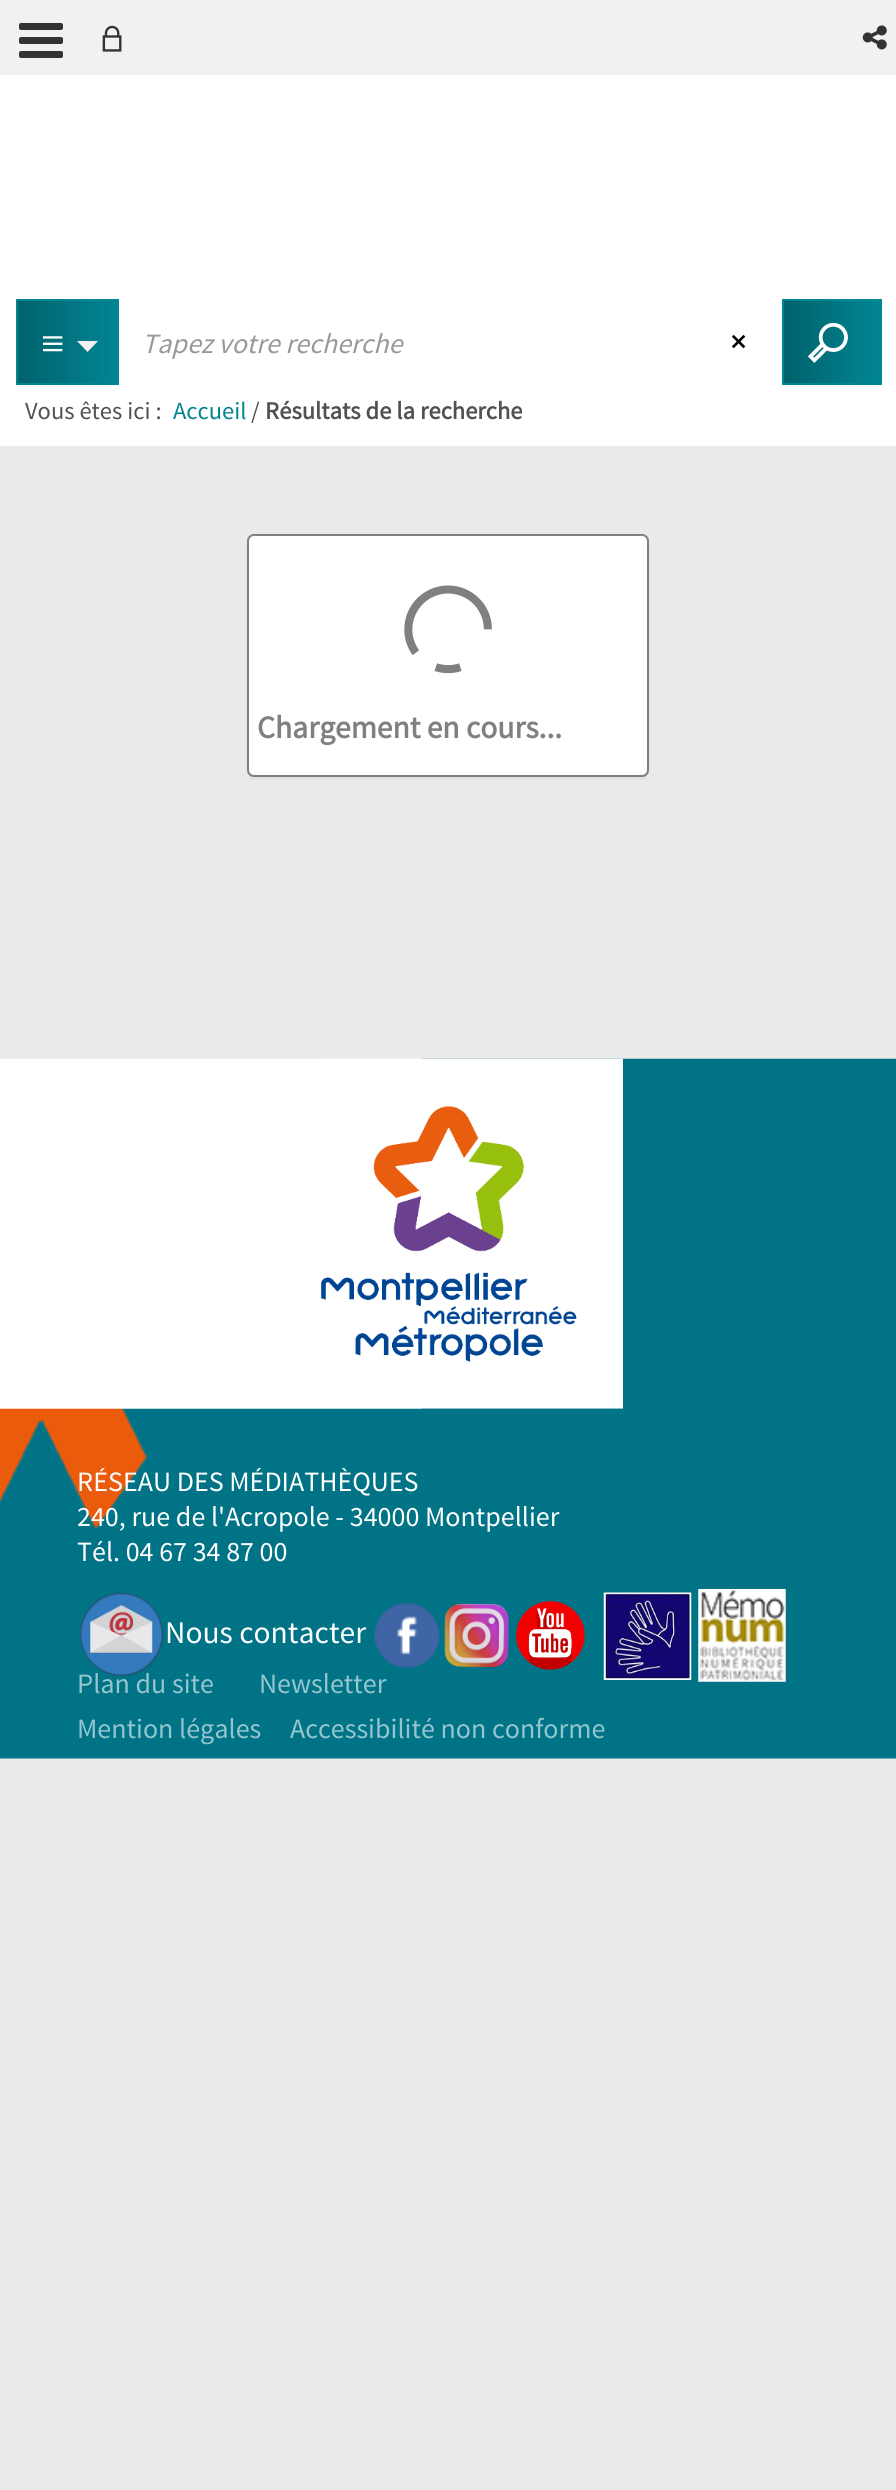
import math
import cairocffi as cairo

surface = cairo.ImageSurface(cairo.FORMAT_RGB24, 896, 2490)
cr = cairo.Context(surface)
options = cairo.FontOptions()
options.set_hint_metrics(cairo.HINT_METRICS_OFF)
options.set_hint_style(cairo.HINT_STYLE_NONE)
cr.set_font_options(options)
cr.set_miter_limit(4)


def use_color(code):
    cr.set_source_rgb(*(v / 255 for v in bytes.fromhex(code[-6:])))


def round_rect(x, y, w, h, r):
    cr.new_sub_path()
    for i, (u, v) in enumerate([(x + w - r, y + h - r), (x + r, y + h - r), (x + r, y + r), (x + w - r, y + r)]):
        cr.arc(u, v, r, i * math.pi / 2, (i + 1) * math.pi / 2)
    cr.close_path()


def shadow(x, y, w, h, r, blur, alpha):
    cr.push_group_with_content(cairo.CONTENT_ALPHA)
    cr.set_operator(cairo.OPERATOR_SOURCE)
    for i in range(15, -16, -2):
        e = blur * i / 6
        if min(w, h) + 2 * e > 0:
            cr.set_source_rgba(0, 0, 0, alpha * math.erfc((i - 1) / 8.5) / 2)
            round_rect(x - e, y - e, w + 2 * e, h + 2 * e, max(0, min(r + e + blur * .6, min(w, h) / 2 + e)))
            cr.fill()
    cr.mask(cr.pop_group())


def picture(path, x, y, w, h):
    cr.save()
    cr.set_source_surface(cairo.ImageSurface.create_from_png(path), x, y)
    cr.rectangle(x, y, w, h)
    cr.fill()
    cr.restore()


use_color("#eaeaea")
cr.paint()
use_color("#f2f0f1")
cr.rectangle(0, 0, 896, 75)
cr.fill()
use_color("#333333")
round_rect(19, 23, 44, 7, 2)
cr.fill()
round_rect(19, 37, 44, 7, 2)
cr.fill()
round_rect(19, 51, 44, 7, 2)
cr.fill()
picture("img1.png", 102, 25, 20, 27)
picture("img2.png", 862, 25, 25, 25)
use_color("#ffffff")
cr.rectangle(0, 75, 896, 371)
cr.fill()
gradient = cairo.LinearGradient(18, 342, 119, 342)
gradient.add_color_stop_rgba(0, 0, 0.384, 0.42, 1)
gradient.add_color_stop_rgba(1, 0.004, 0.525, 0.584, 1)
cr.set_source(gradient)
cr.rectangle(18, 301, 101, 82)
cr.fill()
cr.rectangle(17, 300, 103, 84)
use_color("#008592")
cr.stroke()
picture("img3.png", 43, 336, 20, 16)
use_color("#f2f0f1")
cr.new_path()
cr.move_to(77, 341)
cr.line_to(98, 341)
cr.line_to(87.5, 352)
cr.close_path()
cr.fill()
cr.rectangle(120, 300, 583, 84)
use_color("#ffffff")
cr.stroke()
cr.select_font_face("Source Sans Pro", cairo.FONT_SLANT_ITALIC)
cr.set_font_size(28)
use_color("#999999")
cr.move_to(142, 353)
cr.show_text("Tapez votre recherche")
picture("img4.png", 731, 334, 15, 15)
gradient = cairo.LinearGradient(784, 342, 880, 342)
gradient.add_color_stop_rgba(0, 0, 0.384, 0.42, 1)
gradient.add_color_stop_rgba(1, 0.004, 0.525, 0.584, 1)
cr.set_source(gradient)
cr.rectangle(784, 301, 96, 82)
cr.fill()
cr.rectangle(783, 300, 98, 84)
use_color("#008592")
cr.stroke()
picture("img5.png", 807, 322, 41, 41)
cr.select_font_face("Source Sans Pro")
cr.set_font_size(24.5)
use_color("#515151")
cr.move_to(25, 419)
cr.show_text("Vous êtes ici :")
use_color("#008592")
cr.move_to(173, 419)
cr.show_text("Accueil")
use_color("#515151")
cr.move_to(251, 419)
cr.show_text("/")
cr.select_font_face("Source Sans Pro", cairo.FONT_SLANT_NORMAL, cairo.FONT_WEIGHT_BOLD)
cr.move_to(265, 419)
cr.show_text("Résultats de la recherche")
use_color("#000000")
shadow(247, 536, 402, 243, 7, 1, 0.05)
use_color("#ffffff")
round_rect(248, 535, 400, 241, 6)
cr.fill_preserve()
use_color("#808080")
cr.stroke()
picture("img6.png", 404, 585, 88, 89)
cr.set_font_size(31.5)
cr.move_to(257, 738)
cr.show_text("Chargement en cours...")
picture("img7.png", 0, 1058, 896, 351)
picture("img8.png", 320, 1058, 303, 351)
use_color("#ffffff")
cr.rectangle(0, 1758, 896, 1)
cr.fill()
picture("img9.png", 0, 1408, 896, 351)
cr.select_font_face("Source Sans Pro")
cr.set_font_size(28)
cr.move_to(77, 1491)
cr.show_text("RÉSEAU DES MÉDIATHÈQUES")
cr.move_to(77, 1526)
cr.show_text("240, rue de l'Acropole - 34000 Montpellier")
cr.move_to(77, 1561)
cr.show_text("Tél. 04 67 34 87 00")
picture("img10.png", 79, 1592, 85, 85)
cr.set_font_size(31.5)
cr.move_to(165, 1643)
cr.show_text("Nous contacter")
picture("img11.png", 374, 1602, 66, 67)
picture("img12.png", 444, 1603, 65, 65)
picture("img13.png", 516, 1601, 69, 69)
picture("img14.png", 603, 1592, 89, 88)
picture("img15.png", 698, 1589, 88, 93)
cr.set_font_size(28)
use_color("#95c5cd")
cr.move_to(77, 1693)
cr.show_text("Plan du site")
cr.move_to(259, 1693)
cr.show_text("Newsletter")
cr.move_to(77, 1738)
cr.show_text("Mention légales")
cr.move_to(290, 1738)
cr.show_text("Accessibilité non conforme")
surface.write_to_png("result.png")
